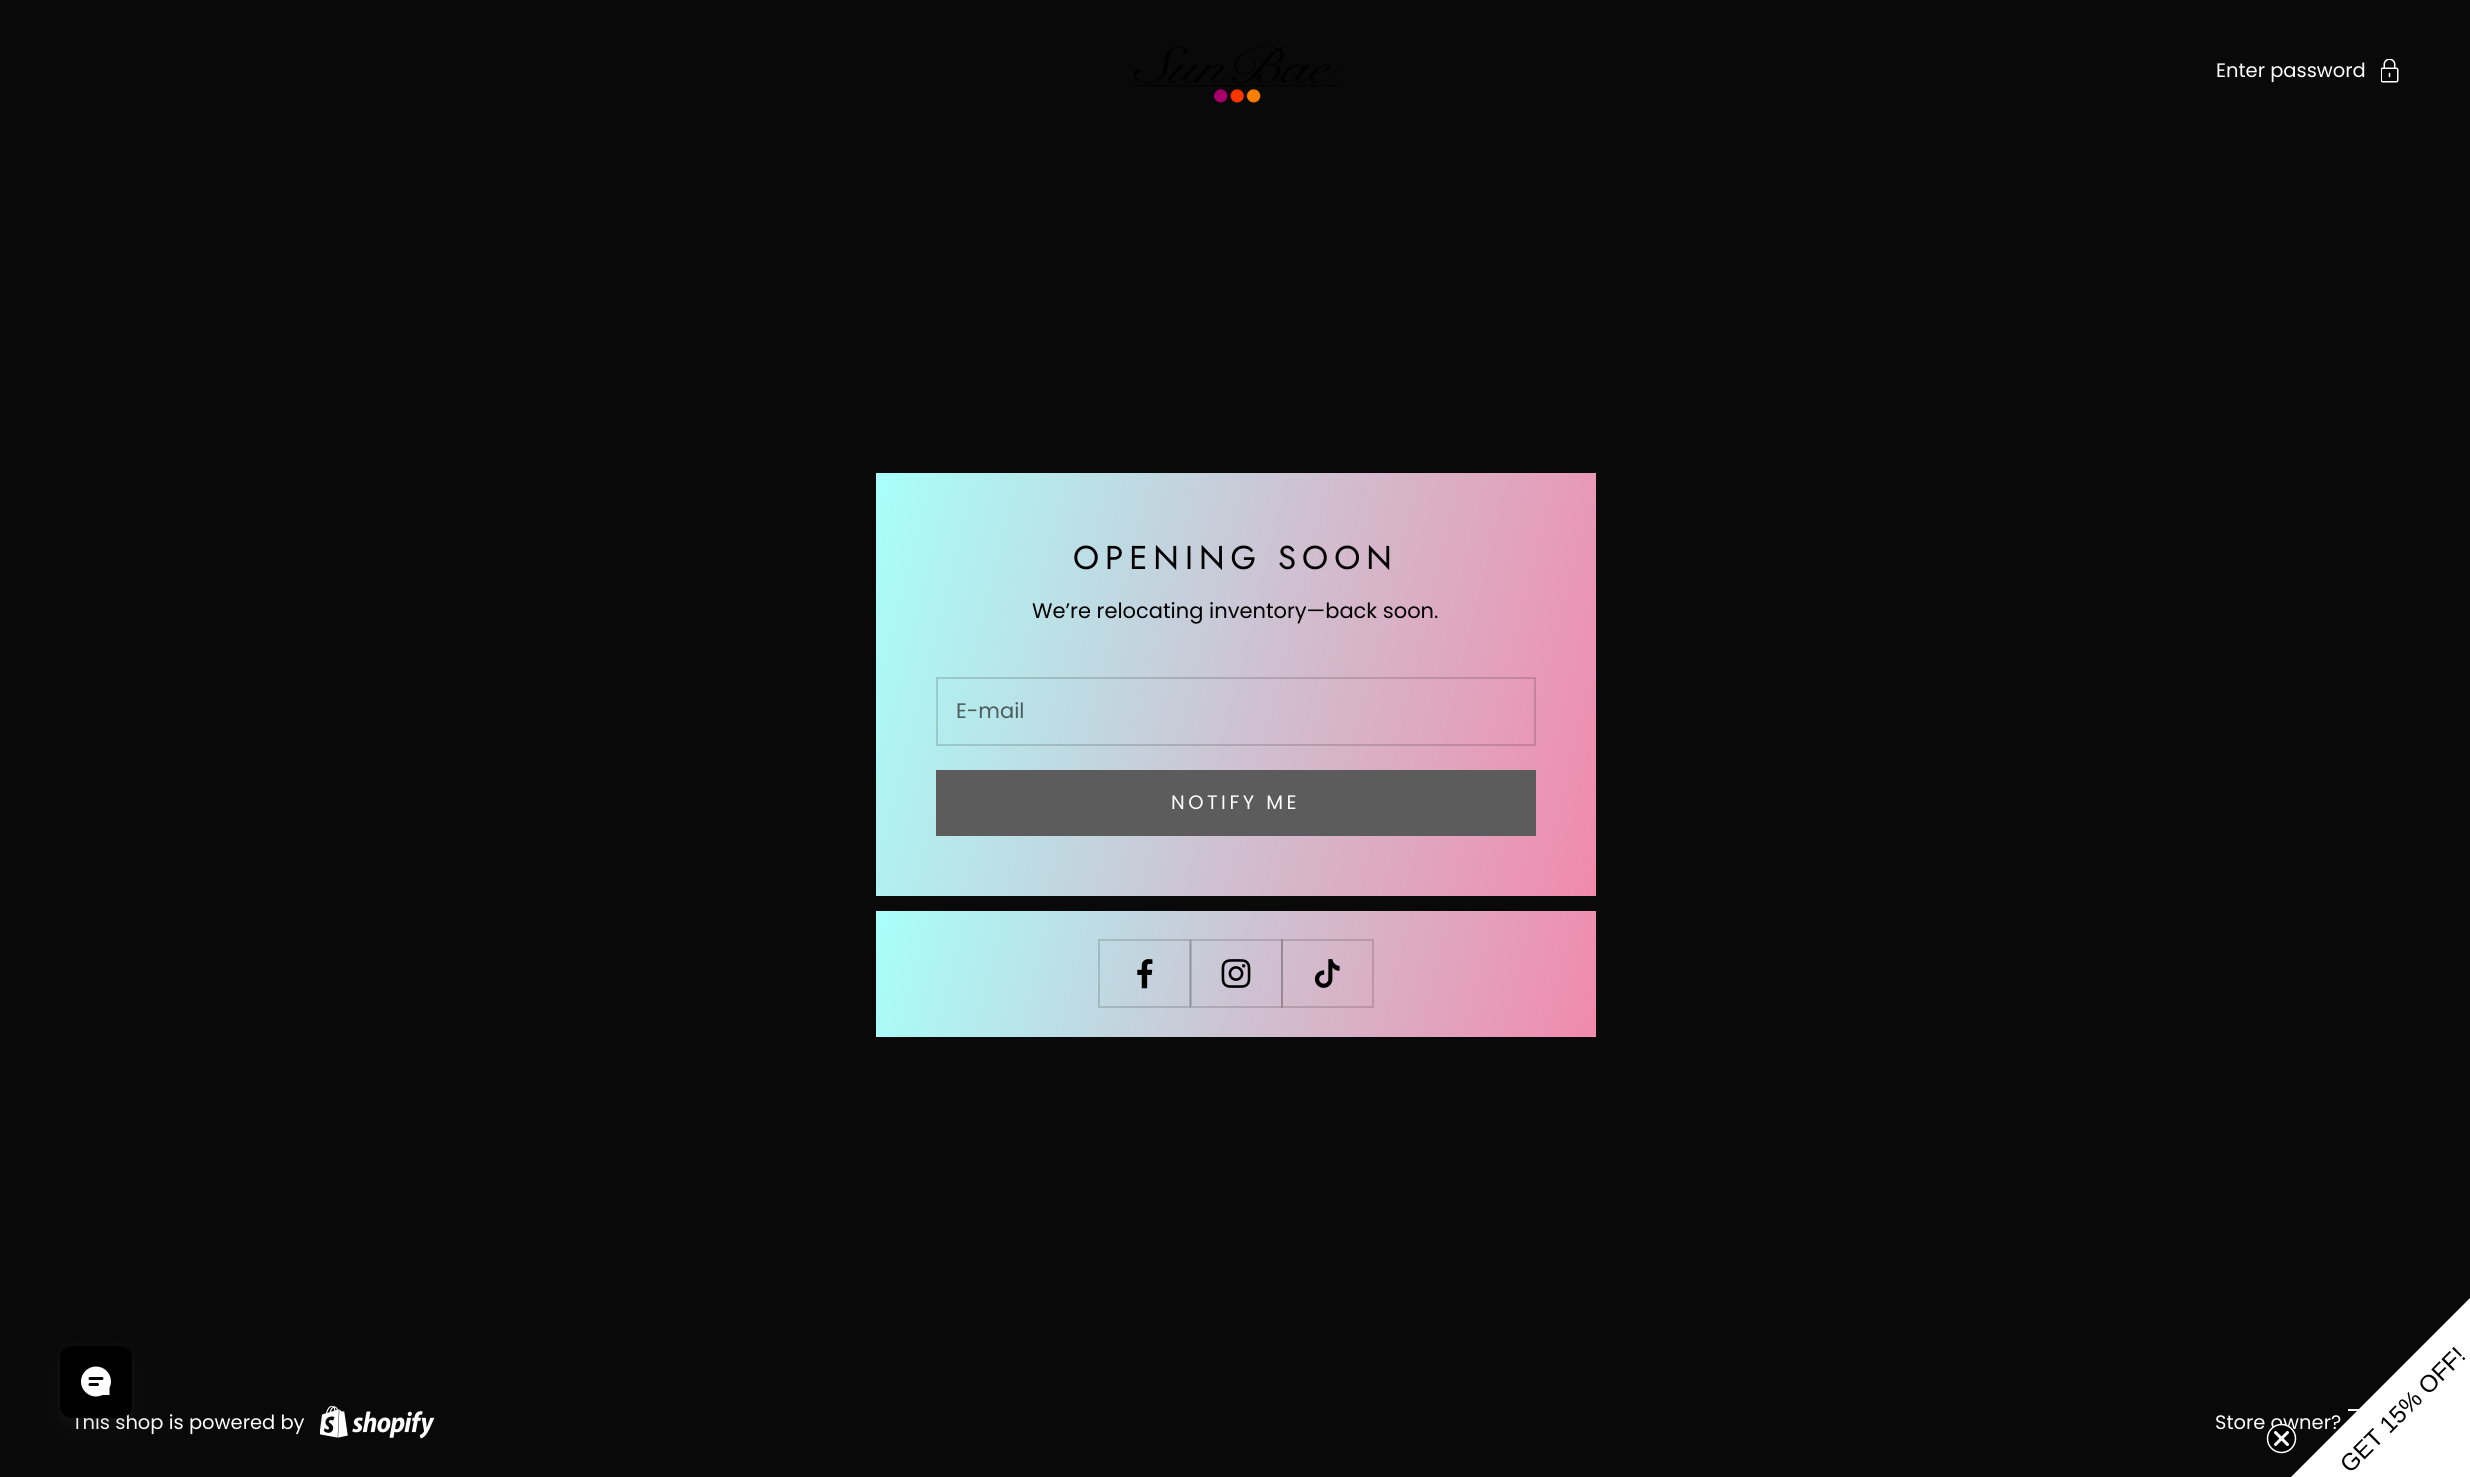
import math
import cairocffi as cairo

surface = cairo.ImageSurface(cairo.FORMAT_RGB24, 2470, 1477)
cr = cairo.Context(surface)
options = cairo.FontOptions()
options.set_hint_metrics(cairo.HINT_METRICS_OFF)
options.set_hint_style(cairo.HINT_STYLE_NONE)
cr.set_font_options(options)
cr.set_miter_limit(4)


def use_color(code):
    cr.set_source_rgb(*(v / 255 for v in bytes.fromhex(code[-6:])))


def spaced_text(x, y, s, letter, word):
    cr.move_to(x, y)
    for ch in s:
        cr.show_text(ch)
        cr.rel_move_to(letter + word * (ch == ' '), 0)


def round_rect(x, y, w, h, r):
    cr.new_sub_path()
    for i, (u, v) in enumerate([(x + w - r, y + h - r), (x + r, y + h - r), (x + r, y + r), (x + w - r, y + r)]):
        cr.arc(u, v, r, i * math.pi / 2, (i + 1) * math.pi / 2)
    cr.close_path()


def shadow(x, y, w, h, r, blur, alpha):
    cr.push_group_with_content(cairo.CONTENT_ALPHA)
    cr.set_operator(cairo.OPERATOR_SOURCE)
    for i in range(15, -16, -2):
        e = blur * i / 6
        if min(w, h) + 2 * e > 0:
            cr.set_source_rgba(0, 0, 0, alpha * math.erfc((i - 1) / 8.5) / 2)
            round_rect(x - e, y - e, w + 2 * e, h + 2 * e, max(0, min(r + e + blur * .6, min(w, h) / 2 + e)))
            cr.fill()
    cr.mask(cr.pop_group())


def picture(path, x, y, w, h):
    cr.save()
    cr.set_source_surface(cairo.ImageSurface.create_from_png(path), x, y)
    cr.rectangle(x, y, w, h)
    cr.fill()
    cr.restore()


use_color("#0a0909")
cr.paint()
picture("img1.png", 1131, 46, 210, 57)
cr.select_font_face("Poppins")
cr.set_font_size(19.5)
use_color("#ffffff")
cr.move_to(2216, 77)
cr.show_text("Enter password")
picture("img2.png", 2381, 59, 18, 24)
gradient = cairo.LinearGradient(1625, 781, 847, 587)
gradient.add_color_stop_rgba(0, 0.945, 0.541, 0.675, 1)
gradient.add_color_stop_rgba(1, 0.659, 1, 0.984, 1)
cr.set_source(gradient)
cr.rectangle(876, 473, 720, 423)
cr.fill()
cr.select_font_face("Jost")
cr.set_font_size(33)
use_color("#000000")
spaced_text(1073, 569, "OPENING SOON", 6, 0)
cr.select_font_face("Poppins")
cr.set_font_size(21)
cr.move_to(1032, 618)
cr.show_text("We’re relocating inventory—back soon.")
cr.rectangle(937, 678, 598, 67)
cr.set_source_rgba(0, 0, 0, 0.15)
cr.stroke()
use_color("#495c5e")
cr.move_to(956, 718)
cr.show_text("E-mail")
use_color("#5c5c5c")
cr.rectangle(937, 771, 598, 64)
cr.fill_preserve()
cr.stroke()
cr.set_font_size(19.5)
use_color("#ffffff")
spaced_text(1171, 809, "NOTIFY ME", 3.5, 0)
gradient = cairo.LinearGradient(1590, 1062, 882, 885)
gradient.add_color_stop_rgba(0, 0.945, 0.541, 0.675, 1)
gradient.add_color_stop_rgba(1, 0.659, 1, 0.984, 1)
cr.set_source(gradient)
cr.rectangle(876, 911, 720, 126)
cr.fill()
cr.rectangle(1099, 940, 91, 67)
cr.set_source_rgba(0, 0, 0, 0.15)
cr.stroke()
picture("img3.png", 1137, 959, 16, 30)
cr.rectangle(1191, 940, 91, 67)
cr.stroke()
picture("img4.png", 1221, 959, 30, 29)
cr.rectangle(1282, 940, 91, 67)
cr.stroke()
picture("img5.png", 1314, 959, 26, 29)
use_color("#ffffff")
cr.move_to(72, 1429)
cr.show_text("This shop is powered by")
picture("img6.png", 320, 1406, 115, 33)
cr.rectangle(2348, 1409, 11, 2)
cr.fill()
cr.move_to(2215, 1429)
cr.show_text("Store owner?")
use_color("#373f47")
shadow(60, 1358, 72, 72, 12, 18, 0.08)
shadow(60, 1352, 72, 72, 12, 3, 0.08)
cr.rectangle(60, 1345, 73, 73)
cr.set_source_rgba(0.216, 0.247, 0.278, 0.04)
cr.stroke()
use_color("#000000")
round_rect(60, 1346, 72, 72, 12)
cr.fill()
picture("img7.png", 81, 1366, 30, 31)
use_color("#ffffff")
cr.new_path()
cr.move_to(2470, 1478)
cr.line_to(2470, 1298)
cr.line_to(2290, 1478)
cr.close_path()
cr.fill()
use_color("#000000")
cr.arc(2281.5, 1438.5, 14, 0, 2 * math.pi)
cr.fill_preserve()
use_color("#ffffff")
cr.set_line_width(1.5)
cr.stroke()
cr.new_path()
cr.move_to(2275.5, 1432.5)
cr.line_to(2287.5, 1444.5)
cr.move_to(2275.5, 1444.5)
cr.line_to(2287.5, 1432.5)
cr.close_path()
cr.set_line_width(3)
cr.set_line_cap(cairo.LINE_CAP_ROUND)
cr.set_line_join(cairo.LINE_JOIN_ROUND)
cr.stroke()
cr.select_font_face("Liberation Sans")
cr.set_font_size(24)
use_color("#000000")
cr.save()
cr.translate(2350, 1474)
cr.rotate(-45 * math.pi / 180)
cr.move_to(0, 0)
cr.show_text("GET 15% OFF!")
cr.restore()
surface.write_to_png("result.png")
